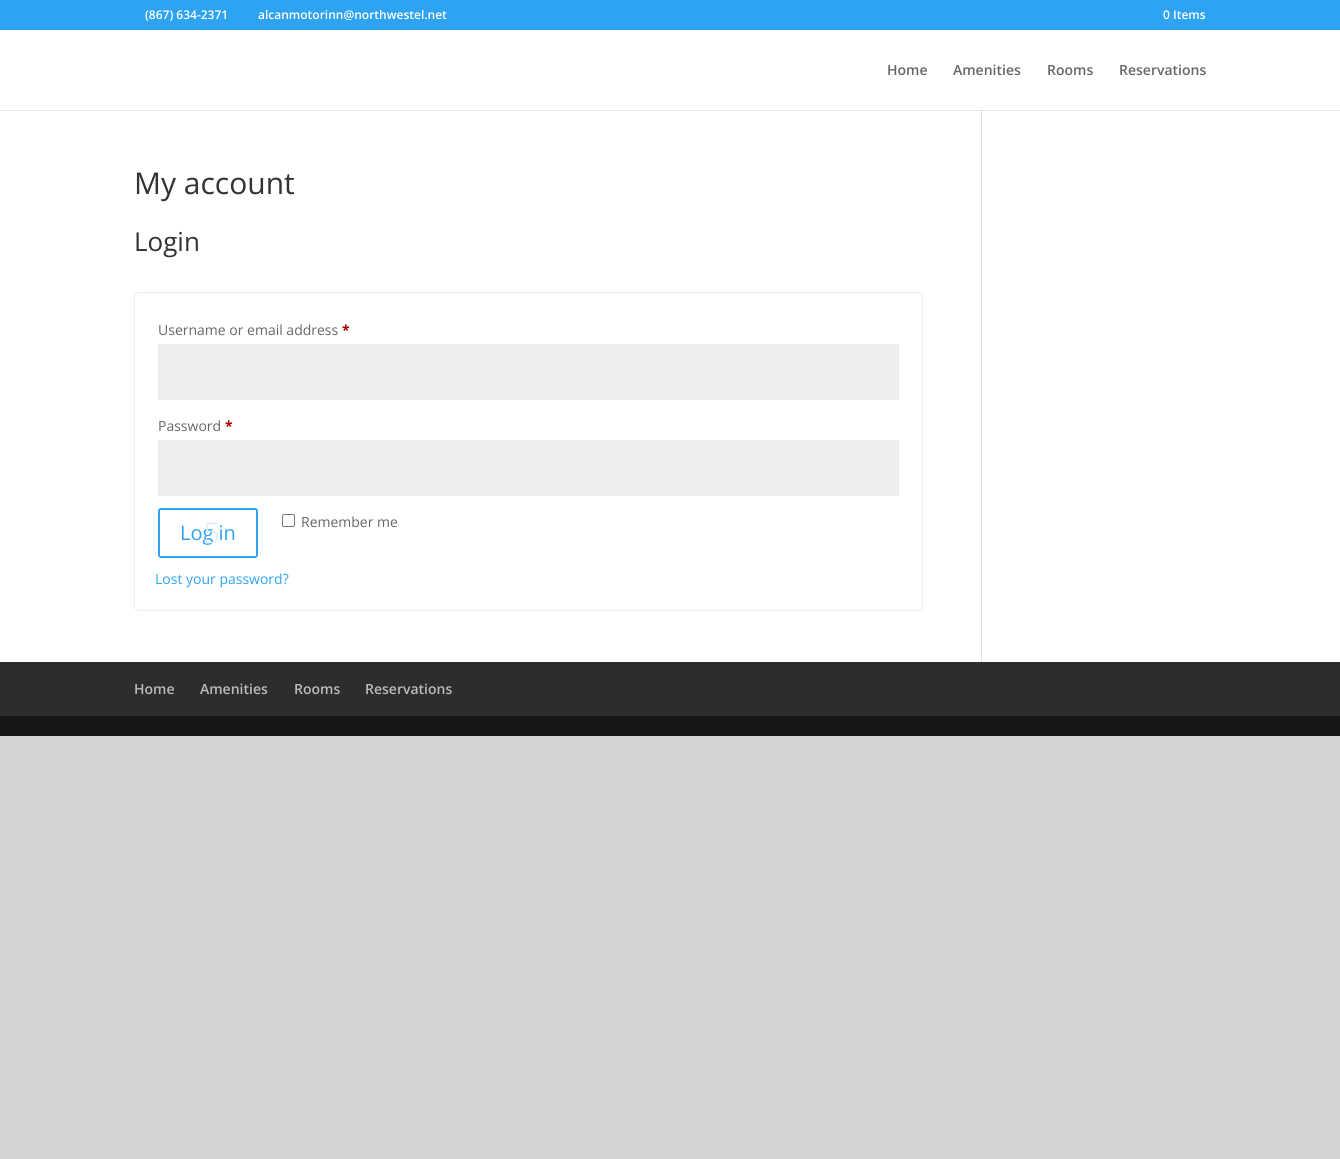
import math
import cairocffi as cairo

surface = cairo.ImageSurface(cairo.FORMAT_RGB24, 1340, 1159)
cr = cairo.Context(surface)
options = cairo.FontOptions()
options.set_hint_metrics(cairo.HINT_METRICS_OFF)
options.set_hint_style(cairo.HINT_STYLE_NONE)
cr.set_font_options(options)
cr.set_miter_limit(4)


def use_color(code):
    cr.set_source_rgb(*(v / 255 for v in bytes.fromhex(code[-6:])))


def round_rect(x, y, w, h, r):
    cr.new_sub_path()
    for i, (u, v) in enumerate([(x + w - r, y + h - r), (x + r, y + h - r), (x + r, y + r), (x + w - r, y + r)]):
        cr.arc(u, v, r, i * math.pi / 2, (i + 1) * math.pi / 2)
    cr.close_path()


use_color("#d3d3d3")
cr.paint()
use_color("#2ea3f2")
cr.rectangle(0, 0, 1340, 30)
cr.fill()
cr.select_font_face("Open Sans SemiBold")
cr.set_font_size(12)
use_color("#ffffff")
cr.move_to(145, 19)
cr.show_text("(867) 634-2371")
cr.move_to(258, 19)
cr.show_text("alcanmotorinn@northwestel.net")
cr.move_to(1163, 19)
cr.show_text("0 Items")
cr.rectangle(0, 30, 1340, 80)
cr.fill()
cr.set_font_size(14)
use_color("#666666")
cr.move_to(887, 75)
cr.show_text("Home")
cr.move_to(953, 75)
cr.show_text("Amenities")
cr.move_to(1047, 75)
cr.show_text("Rooms")
cr.move_to(1119, 75)
cr.show_text("Reservations")
use_color("#ffffff")
cr.rectangle(0, 111, 1340, 551)
cr.fill()
use_color("#e6e6e6")
cr.rectangle(0, 110, 1340, 1)
cr.fill()
cr.select_font_face("Open Sans")
cr.set_font_size(30)
use_color("#333333")
cr.move_to(134, 194)
cr.show_text("My account")
cr.set_font_size(26)
cr.move_to(134, 251)
cr.show_text("Login")
round_rect(134.5, 292.5, 788, 318, 4.5)
use_color("#eeeeee")
cr.set_line_width(1)
cr.stroke()
cr.set_font_size(14)
use_color("#666666")
cr.move_to(158, 335)
cr.show_text("Username or email address")
cr.select_font_face("Open Sans", cairo.FONT_SLANT_NORMAL, cairo.FONT_WEIGHT_BOLD)
use_color("#aa0000")
cr.move_to(342, 335)
cr.show_text("*")
use_color("#eeeeee")
cr.rectangle(158, 344, 741, 56)
cr.fill()
cr.select_font_face("Open Sans")
use_color("#666666")
cr.move_to(158, 431)
cr.show_text("Password")
cr.select_font_face("Open Sans", cairo.FONT_SLANT_NORMAL, cairo.FONT_WEIGHT_BOLD)
use_color("#aa0000")
cr.move_to(225, 431)
cr.show_text("*")
use_color("#eeeeee")
cr.rectangle(158, 440, 741, 56)
cr.fill()
round_rect(159, 509, 98, 48, 2)
use_color("#2ea3f2")
cr.set_line_width(2)
cr.stroke()
cr.select_font_face("Open Sans")
cr.set_font_size(20)
cr.move_to(180, 540)
cr.show_text("Log in")
cr.select_font_face("Liberation Serif")
cr.set_font_size(32)
use_color("#e2f2fd")
cr.move_to(204, 543)
cr.show_text("5")
round_rect(282.5, 514.5, 12, 12, 1.5)
use_color("#767676")
cr.set_line_width(1)
cr.stroke()
cr.select_font_face("Open Sans")
cr.set_font_size(14)
use_color("#666666")
cr.move_to(301, 527)
cr.show_text("Remember me")
use_color("#2ea3f2")
cr.move_to(155, 584)
cr.show_text("Lost your password?")
use_color("#e2e2e2")
cr.rectangle(981, 110, 1, 552)
cr.fill()
use_color("#cbcbcb")
cr.rectangle(981, 110, 1, 1)
cr.fill()
use_color("#2d2d2d")
cr.rectangle(0, 662, 1340, 54)
cr.fill()
cr.select_font_face("Open Sans SemiBold")
use_color("#bbbbbb")
cr.move_to(134, 694)
cr.show_text("Home")
cr.move_to(200, 694)
cr.show_text("Amenities")
cr.move_to(294, 694)
cr.show_text("Rooms")
cr.move_to(365, 694)
cr.show_text("Reservations")
use_color("#171717")
cr.rectangle(0, 716, 1340, 20)
cr.fill()
surface.write_to_png("result.png")
